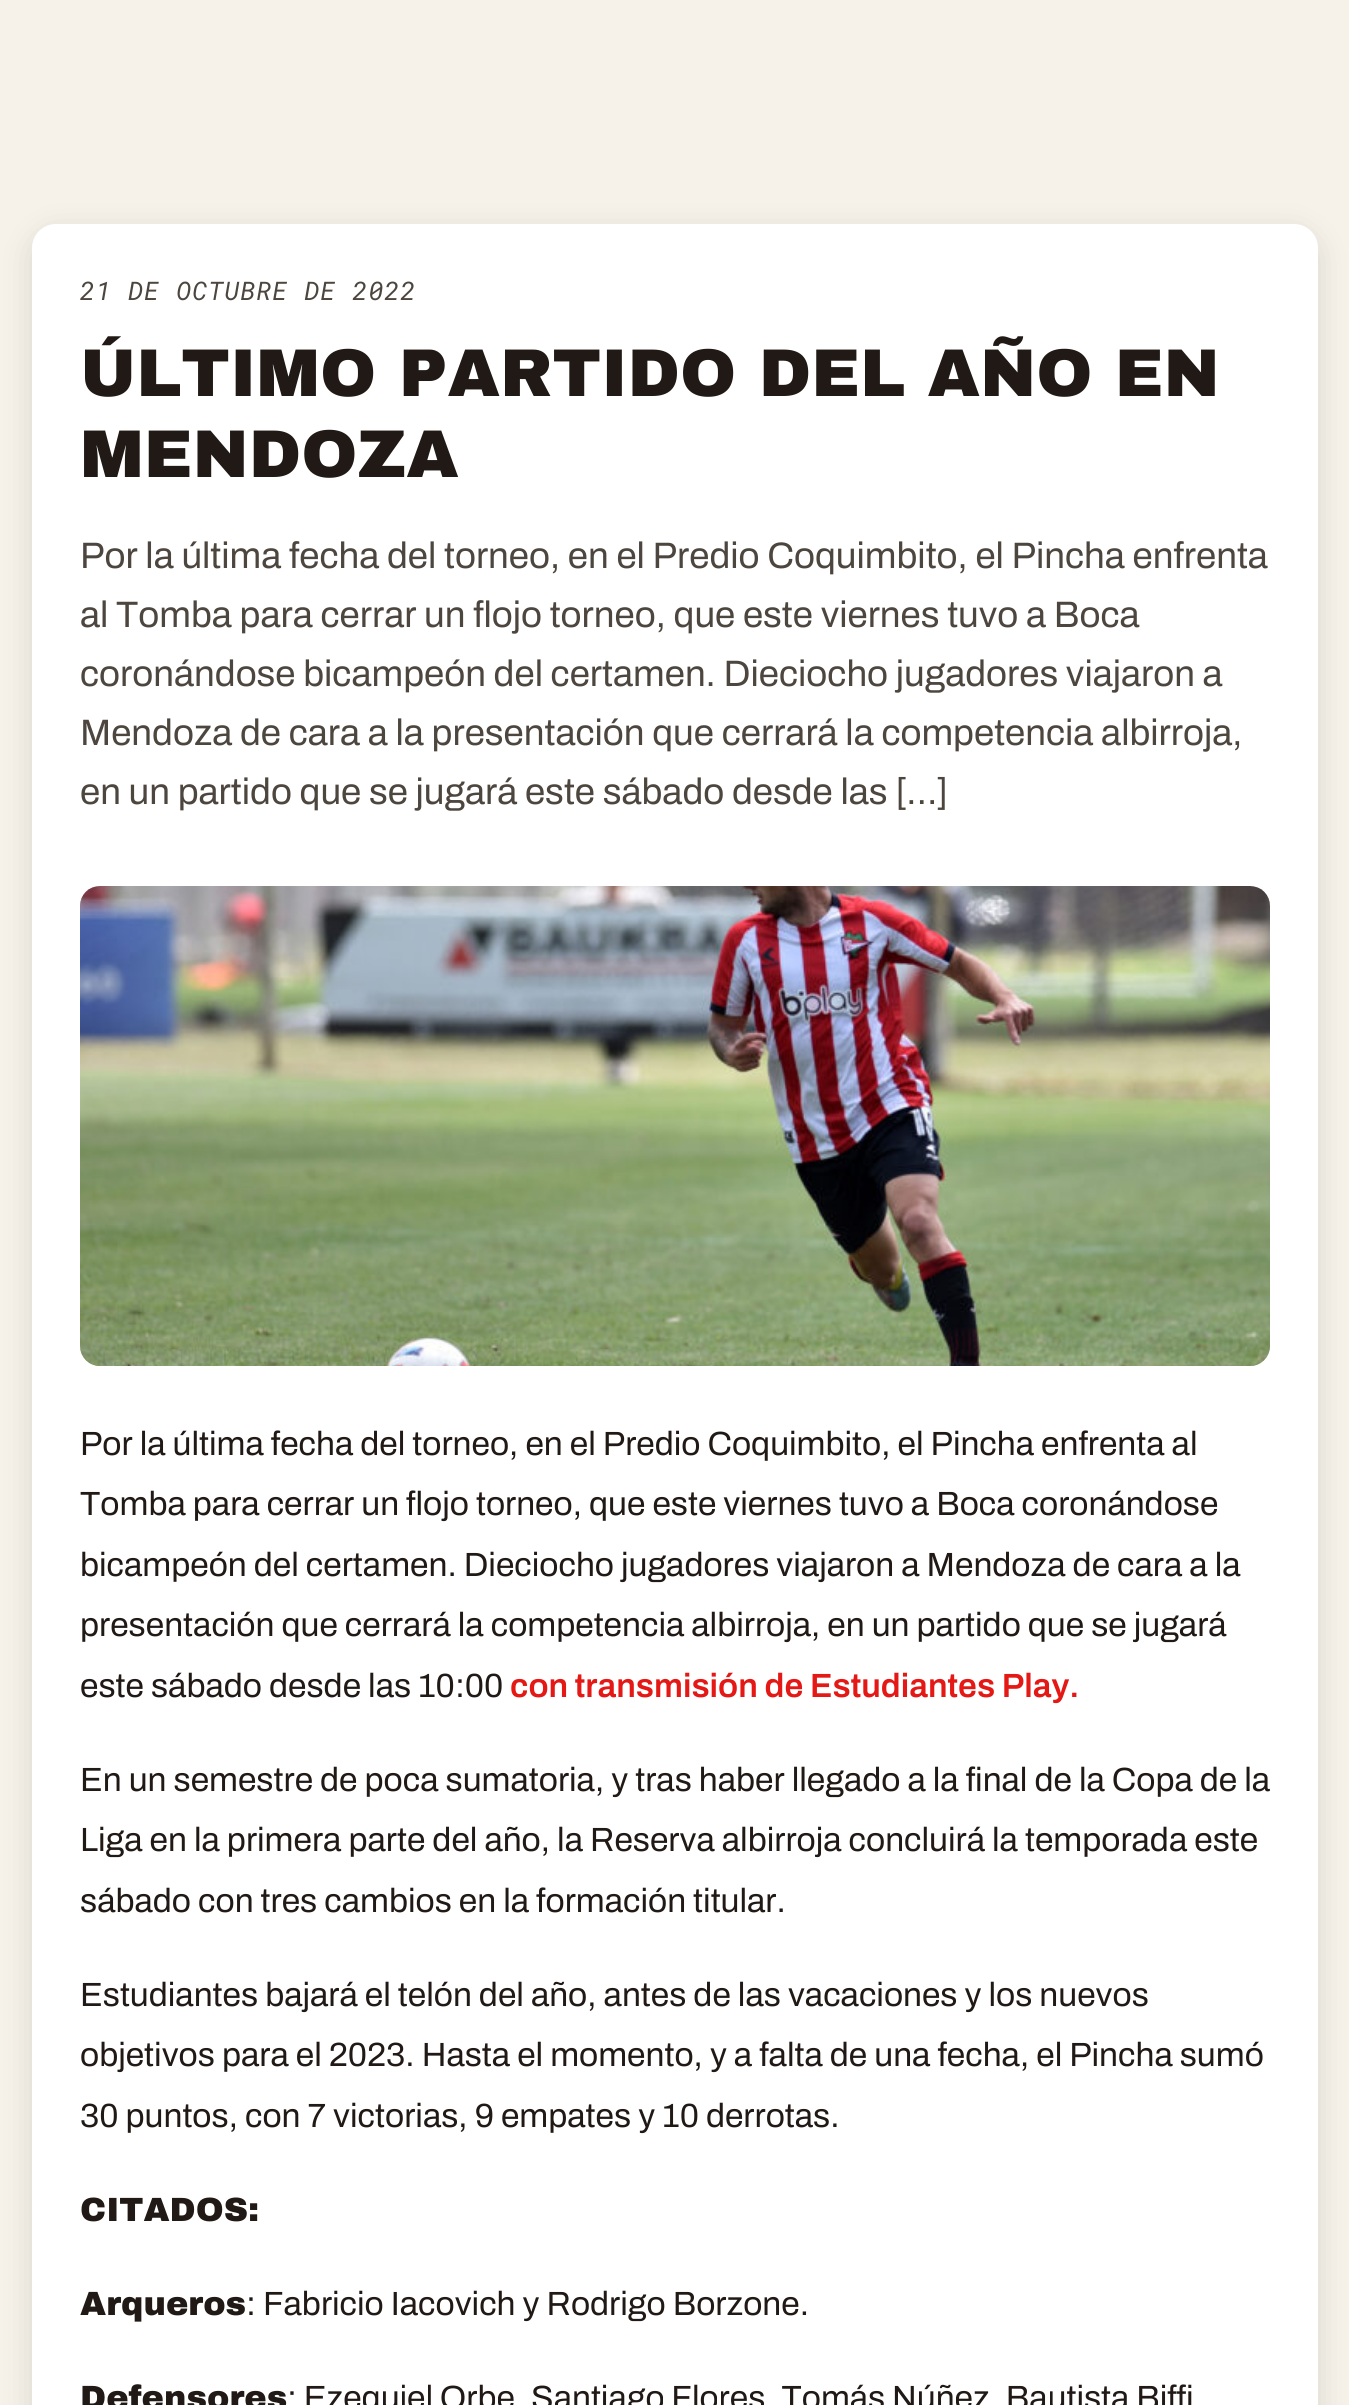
import math
import cairocffi as cairo

surface = cairo.ImageSurface(cairo.FORMAT_RGB24, 1349, 2405)
cr = cairo.Context(surface)
options = cairo.FontOptions()
options.set_hint_metrics(cairo.HINT_METRICS_OFF)
options.set_hint_style(cairo.HINT_STYLE_NONE)
cr.set_font_options(options)
cr.set_miter_limit(4)


def use_color(code):
    cr.set_source_rgb(*(v / 255 for v in bytes.fromhex(code[-6:])))


def spaced_text(x, y, s, letter, word):
    cr.move_to(x, y)
    for ch in s:
        cr.show_text(ch)
        cr.rel_move_to(letter + word * (ch == ' '), 0)


def round_rect(x, y, w, h, r):
    cr.new_sub_path()
    for i, (u, v) in enumerate([(x + w - r, y + h - r), (x + r, y + h - r), (x + r, y + r), (x + w - r, y + r)]):
        cr.arc(u, v, r, i * math.pi / 2, (i + 1) * math.pi / 2)
    cr.close_path()


def shadow(x, y, w, h, r, blur, alpha):
    cr.push_group_with_content(cairo.CONTENT_ALPHA)
    cr.set_operator(cairo.OPERATOR_SOURCE)
    for i in range(15, -16, -2):
        e = blur * i / 6
        if min(w, h) + 2 * e > 0:
            cr.set_source_rgba(0, 0, 0, alpha * math.erfc((i - 1) / 8.5) / 2)
            round_rect(x - e, y - e, w + 2 * e, h + 2 * e, max(0, min(r + e + blur * .6, min(w, h) / 2 + e)))
            cr.fill()
    cr.mask(cr.pop_group())


def picture(path, x, y, w, h):
    cr.save()
    cr.set_source_surface(cairo.ImageSurface.create_from_png(path), x, y)
    cr.rectangle(x, y, w, h)
    cr.fill()
    cr.restore()


use_color("#f6f2e9")
cr.paint()
use_color("#000000")
shadow(32, 232, 1286, 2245, 24, 16, 0.12)
use_color("#ffffff")
round_rect(32, 224, 1286, 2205, 24)
cr.fill()
cr.select_font_face("Roboto Mono", cairo.FONT_SLANT_ITALIC)
cr.set_font_size(25.6)
use_color("#4d463f")
spaced_text(80, 300, "21 DE OCTUBRE DE 2022", 1, 0)
cr.select_font_face("Archivo Black Black")
cr.set_font_size(67.5)
use_color("#211915")
cr.move_to(80, 396)
cr.show_text("ÚLTIMO PARTIDO DEL AÑO EN")
cr.move_to(80, 477)
cr.show_text("MENDOZA")
cr.select_font_face("Archivo")
cr.set_font_size(36.8)
use_color("#4d463f")
cr.move_to(80, 568)
cr.show_text("Por la última fecha del torneo, en el Predio Coquimbito, el Pincha enfrenta")
cr.move_to(80, 627)
cr.show_text("al Tomba para cerrar un flojo torneo, que este viernes tuvo a Boca")
cr.move_to(80, 686)
cr.show_text("coronándose bicampeón del certamen. Dieciocho jugadores viajaron a")
cr.move_to(80, 745)
cr.show_text("Mendoza de cara a la presentación que cerrará la competencia albirroja,")
cr.move_to(80, 804)
cr.show_text("en un partido que se jugará este sábado desde las […]")
use_color("#d7d2c8")
round_rect(80, 886, 1190, 480, 20)
cr.fill()
picture("img1.png", 80, 886, 1190, 480)
cr.set_font_size(33.6)
use_color("#211915")
cr.move_to(80, 1455)
cr.show_text("Por la última fecha del torneo, en el Predio Coquimbito, el Pincha enfrenta al")
cr.move_to(80, 1515)
cr.show_text("Tomba para cerrar un flojo torneo, que este viernes tuvo a Boca coronándose")
cr.move_to(80, 1576)
cr.show_text("bicampeón del certamen. Dieciocho jugadores viajaron a Mendoza de cara a la")
cr.move_to(80, 1636)
cr.show_text("presentación que cerrará la competencia albirroja, en un partido que se jugará")
cr.move_to(80, 1697)
cr.show_text("este sábado desde las 10:00")
cr.select_font_face("Archivo SemiBold")
use_color("#e41815")
cr.move_to(510, 1697)
cr.show_text("con transmisión de Estudiantes Play.")
cr.select_font_face("Archivo")
use_color("#211915")
cr.move_to(80, 1791)
cr.show_text("En un semestre de poca sumatoria, y tras haber llegado a la final de la Copa de la")
cr.move_to(80, 1851)
cr.show_text("Liga en la primera parte del año, la Reserva albirroja concluirá la temporada este")
cr.move_to(80, 1912)
cr.show_text("sábado con tres cambios en la formación titular.")
cr.move_to(80, 2006)
cr.show_text("Estudiantes bajará el telón del año, antes de las vacaciones y los nuevos")
cr.move_to(80, 2066)
cr.show_text("objetivos para el 2023. Hasta el momento, y a falta de una fecha, el Pincha sumó")
cr.move_to(80, 2127)
cr.show_text("30 puntos, con 7 victorias, 9 empates y 10 derrotas.")
cr.select_font_face("Archivo Black Black")
cr.move_to(80, 2221)
cr.show_text("CITADOS:")
cr.move_to(80, 2315)
cr.show_text("Arqueros")
cr.select_font_face("Archivo")
cr.move_to(246, 2315)
cr.show_text(": Fabricio Iacovich y Rodrigo Borzone.")
cr.select_font_face("Archivo Black Black")
cr.move_to(80, 2409)
cr.show_text("Defensores")
cr.select_font_face("Archivo")
spaced_text(287, 2409, ": Ezequiel Orbe, Santiago Flores, Tomás Núñez, Bautista Biffi", 0, -0.25)
surface.write_to_png("result.png")
